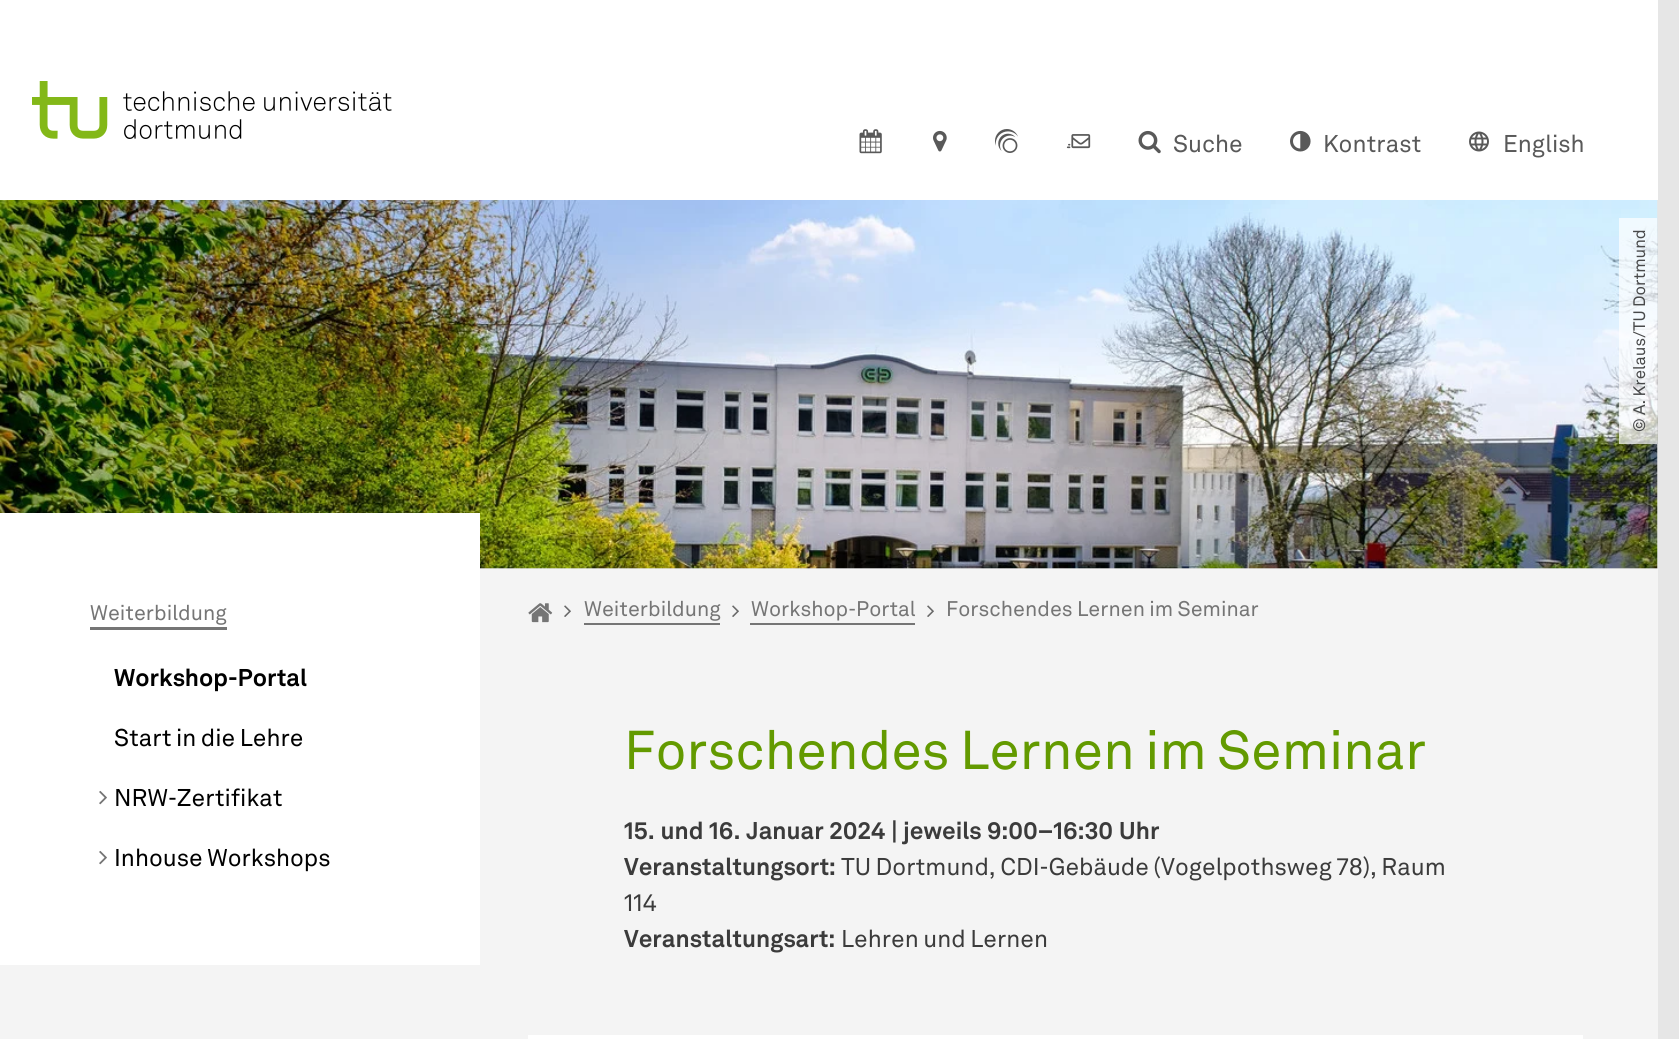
import math
import cairocffi as cairo

surface = cairo.ImageSurface(cairo.FORMAT_RGB24, 1679, 1039)
cr = cairo.Context(surface)
options = cairo.FontOptions()
options.set_hint_metrics(cairo.HINT_METRICS_OFF)
options.set_hint_style(cairo.HINT_STYLE_NONE)
cr.set_font_options(options)
cr.set_miter_limit(4)


def use_color(code):
    cr.set_source_rgb(*(v / 255 for v in bytes.fromhex(code[-6:])))


def spaced_text(x, y, s, letter, word):
    cr.move_to(x, y)
    for ch in s:
        cr.show_text(ch)
        cr.rel_move_to(letter + word * (ch == ' '), 0)


def picture(path, x, y, w, h):
    cr.save()
    cr.set_source_surface(cairo.ImageSurface.create_from_png(path), x, y)
    cr.rectangle(x, y, w, h)
    cr.fill()
    cr.restore()


use_color("#e6e6e6")
cr.paint()
use_color("#ffffff")
cr.rectangle(0, 0, 1658, 200)
cr.fill()
picture("img1.png", 32, 81, 360, 58)
picture("img2.png", 859, 129, 23, 25)
picture("img3.png", 933, 130, 14, 22)
picture("img4.png", 995, 129, 23, 24)
picture("img5.png", 1066, 134, 25, 15)
picture("img6.png", 1138, 130, 23, 24)
cr.select_font_face("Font")
cr.set_font_size(24)
use_color("#595959")
cr.move_to(1173, 152)
cr.show_text("Suche")
picture("img7.png", 1290, 130, 21, 22)
cr.move_to(1323, 152)
cr.show_text("Kontrast")
picture("img8.png", 1469, 131, 20, 21)
cr.move_to(1503, 152)
cr.show_text("English")
picture("img9.png", 0, 200, 1658, 369)
cr.set_source_rgba(1, 1, 1, 0.7)
cr.rectangle(1619, 218, 38, 226)
cr.fill()
cr.set_font_size(16.5)
use_color("#48494a")
cr.save()
cr.translate(1645, 432)
cr.rotate(-90 * math.pi / 180)
spaced_text(0, 0, "© A. Krelaus/TU Dortmund", 0, -0.5)
cr.restore()
use_color("#f4f4f4")
cr.rectangle(0, 569, 1658, 470)
cr.fill()
use_color("#ffffff")
cr.rectangle(0, 513, 480, 452)
cr.fill()
cr.set_font_size(21)
use_color("#757575")
cr.move_to(90, 620)
cr.show_text("Weiterbildung")
cr.rectangle(90, 627, 137, 3)
cr.fill()
cr.select_font_face("Font", cairo.FONT_SLANT_NORMAL, cairo.FONT_WEIGHT_BOLD)
cr.set_font_size(24)
use_color("#000000")
cr.move_to(114, 686)
cr.show_text("Workshop-Portal")
cr.select_font_face("Font")
spaced_text(114, 746, "Start in die Lehre", 0, -1)
picture("img10.png", 99, 790, 8, 15)
cr.move_to(114, 806)
cr.show_text("NRW-Zertifikat")
picture("img10.png", 99, 850, 8, 15)
spaced_text(114, 866, "Inhouse Workshops", 0, -1)
picture("img11.png", 528, 603, 25, 20)
picture("img12.png", 564, 605, 7, 12)
cr.set_font_size(21)
use_color("#757575")
cr.move_to(584, 616)
cr.show_text("Weiterbildung")
cr.rectangle(584, 623, 136, 2)
cr.fill()
picture("img12.png", 732, 605, 7, 12)
cr.move_to(751, 616)
cr.show_text("Workshop-Portal")
cr.rectangle(750, 623, 165, 2)
cr.fill()
picture("img12.png", 927, 605, 7, 12)
spaced_text(946, 616, "Forschendes Lernen im Seminar", 0, -0.5)
cr.set_font_size(54)
use_color("#639a00")
spaced_text(624, 769, "Forschendes Lernen im Seminar", 0, -2)
cr.select_font_face("Font", cairo.FONT_SLANT_NORMAL, cairo.FONT_WEIGHT_BOLD)
cr.set_font_size(24)
use_color("#3b3b3b")
spaced_text(624, 839, "15. und 16. Januar 2024 | jeweils 9:00–16:30 Uhr", 0, 0.5)
cr.move_to(624, 875)
cr.show_text("Veranstaltungsort:")
cr.select_font_face("Font")
spaced_text(841, 875, "TU Dortmund, CDI-Gebäude (Vogelpothsweg 78), Raum", 0, -1)
cr.move_to(624, 911)
cr.show_text("114")
cr.select_font_face("Font", cairo.FONT_SLANT_NORMAL, cairo.FONT_WEIGHT_BOLD)
cr.move_to(624, 947)
cr.show_text("Veranstaltungsart:")
cr.select_font_face("Font")
spaced_text(841, 947, "Lehren und Lernen", 0, -1)
use_color("#ffffff")
cr.rectangle(528, 1035, 1055, 4)
cr.fill()
surface.write_to_png("result.png")
